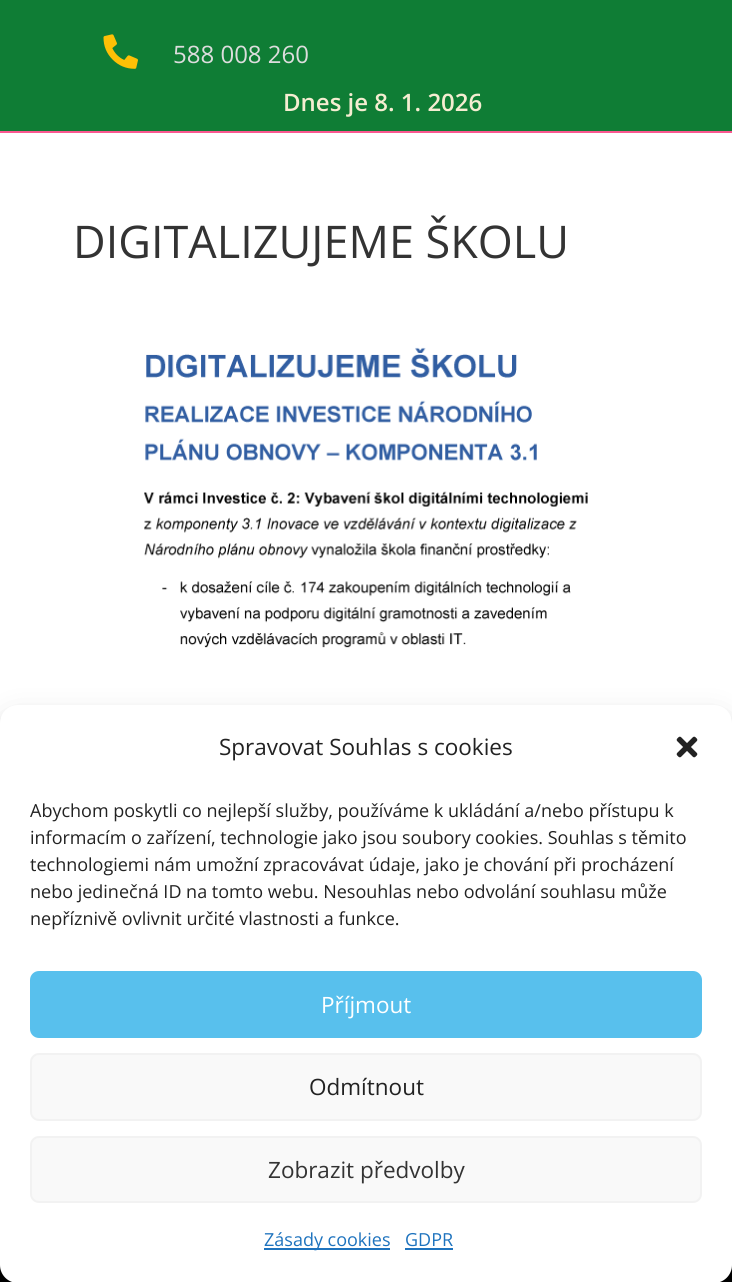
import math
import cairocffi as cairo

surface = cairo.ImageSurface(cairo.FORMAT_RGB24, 732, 1282)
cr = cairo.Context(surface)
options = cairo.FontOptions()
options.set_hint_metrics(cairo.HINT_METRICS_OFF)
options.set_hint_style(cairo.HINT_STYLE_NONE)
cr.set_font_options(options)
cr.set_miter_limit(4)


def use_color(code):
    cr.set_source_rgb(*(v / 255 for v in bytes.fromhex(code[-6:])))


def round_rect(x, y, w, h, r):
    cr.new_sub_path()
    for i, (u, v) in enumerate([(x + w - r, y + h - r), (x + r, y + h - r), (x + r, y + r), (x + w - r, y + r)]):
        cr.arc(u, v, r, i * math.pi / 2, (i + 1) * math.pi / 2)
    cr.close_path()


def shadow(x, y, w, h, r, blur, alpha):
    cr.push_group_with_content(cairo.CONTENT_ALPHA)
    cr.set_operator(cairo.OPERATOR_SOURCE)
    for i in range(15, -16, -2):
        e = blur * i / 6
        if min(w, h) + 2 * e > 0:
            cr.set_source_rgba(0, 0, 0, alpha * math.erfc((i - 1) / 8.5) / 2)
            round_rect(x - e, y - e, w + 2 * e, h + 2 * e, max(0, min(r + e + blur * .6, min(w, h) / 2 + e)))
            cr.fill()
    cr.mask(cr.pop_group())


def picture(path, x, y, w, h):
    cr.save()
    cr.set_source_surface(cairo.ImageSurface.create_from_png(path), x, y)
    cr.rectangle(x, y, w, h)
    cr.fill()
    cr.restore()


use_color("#ffffff")
cr.paint()
use_color("#0f7d35")
cr.rectangle(0, 0, 732, 131)
cr.fill()
use_color("#fb5891")
cr.rectangle(0, 131, 732, 2)
cr.fill()
picture("img1.png", 103, 34, 35, 35)
cr.select_font_face("Open Sans")
cr.set_font_size(24)
use_color("#dddddd")
cr.move_to(173, 63)
cr.show_text("588 008 260")
cr.select_font_face("Open Sans SemiBold")
use_color("#f5edd1")
cr.move_to(283, 111)
cr.show_text("Dnes je 8. 1. 2026")
cr.select_font_face("Open Sans")
cr.set_font_size(45)
use_color("#333333")
cr.move_to(73, 258)
cr.show_text("DIGITALIZUJEME ŠKOLU")
picture("img2.png", 144, 347, 444, 301)
use_color("#000000")
cr.rectangle(0, 1265, 732, 17)
cr.fill()
use_color("#000000")
shadow(0, 714, 732, 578, 18, 4.5, 0.23)
shadow(0, 720, 732, 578, 18, 15, 0.19)
use_color("#808080")
shadow(627, 1172, 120, 90, 3, 4, 1)
use_color("#ffffff")
round_rect(0, 705, 732, 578, 18)
cr.fill()
cr.set_font_size(22.5)
use_color("#222222")
cr.move_to(219, 755)
cr.show_text("Spravovat Souhlas s cookies")
picture("img3.png", 676, 736, 22, 22)
cr.set_font_size(18)
cr.move_to(30, 817)
cr.show_text("Abychom poskytli co nejlepší služby, používáme k ukládání a/nebo přístupu k")
cr.move_to(30, 844)
cr.show_text("informacím o zařízení, technologie jako jsou soubory cookies. Souhlas s těmito")
cr.move_to(30, 871)
cr.show_text("technologiemi nám umožní zpracovávat údaje, jako je chování při procházení")
cr.move_to(30, 898)
cr.show_text("nebo jedinečná ID na tomto webu. Nesouhlas nebo odvolání souhlasu může")
cr.move_to(30, 925)
cr.show_text("nepříznivě ovlivnit určité vlastnosti a funkce.")
use_color("#58c0ed")
round_rect(31, 972, 670, 65, 8)
cr.fill_preserve()
cr.stroke()
cr.set_font_size(22.5)
use_color("#ffffff")
cr.move_to(321, 1013)
cr.show_text("Příjmout")
use_color("#f9f9f9")
round_rect(31, 1054, 670, 66, 8)
cr.fill_preserve()
use_color("#f2f2f2")
cr.stroke()
use_color("#222222")
cr.move_to(309, 1095)
cr.show_text("Odmítnout")
use_color("#f9f9f9")
round_rect(31, 1137, 670, 65, 8)
cr.fill_preserve()
use_color("#f2f2f2")
cr.stroke()
use_color("#333333")
cr.move_to(268, 1178)
cr.show_text("Zobrazit předvolby")
use_color("#1e73be")
cr.rectangle(264, 1248, 126, 2)
cr.fill()
cr.set_font_size(18)
cr.move_to(264, 1246)
cr.show_text("Zásady cookies")
cr.move_to(405, 1246)
cr.show_text("GDPR")
cr.rectangle(405, 1248, 48, 2)
cr.fill()
surface.write_to_png("result.png")
